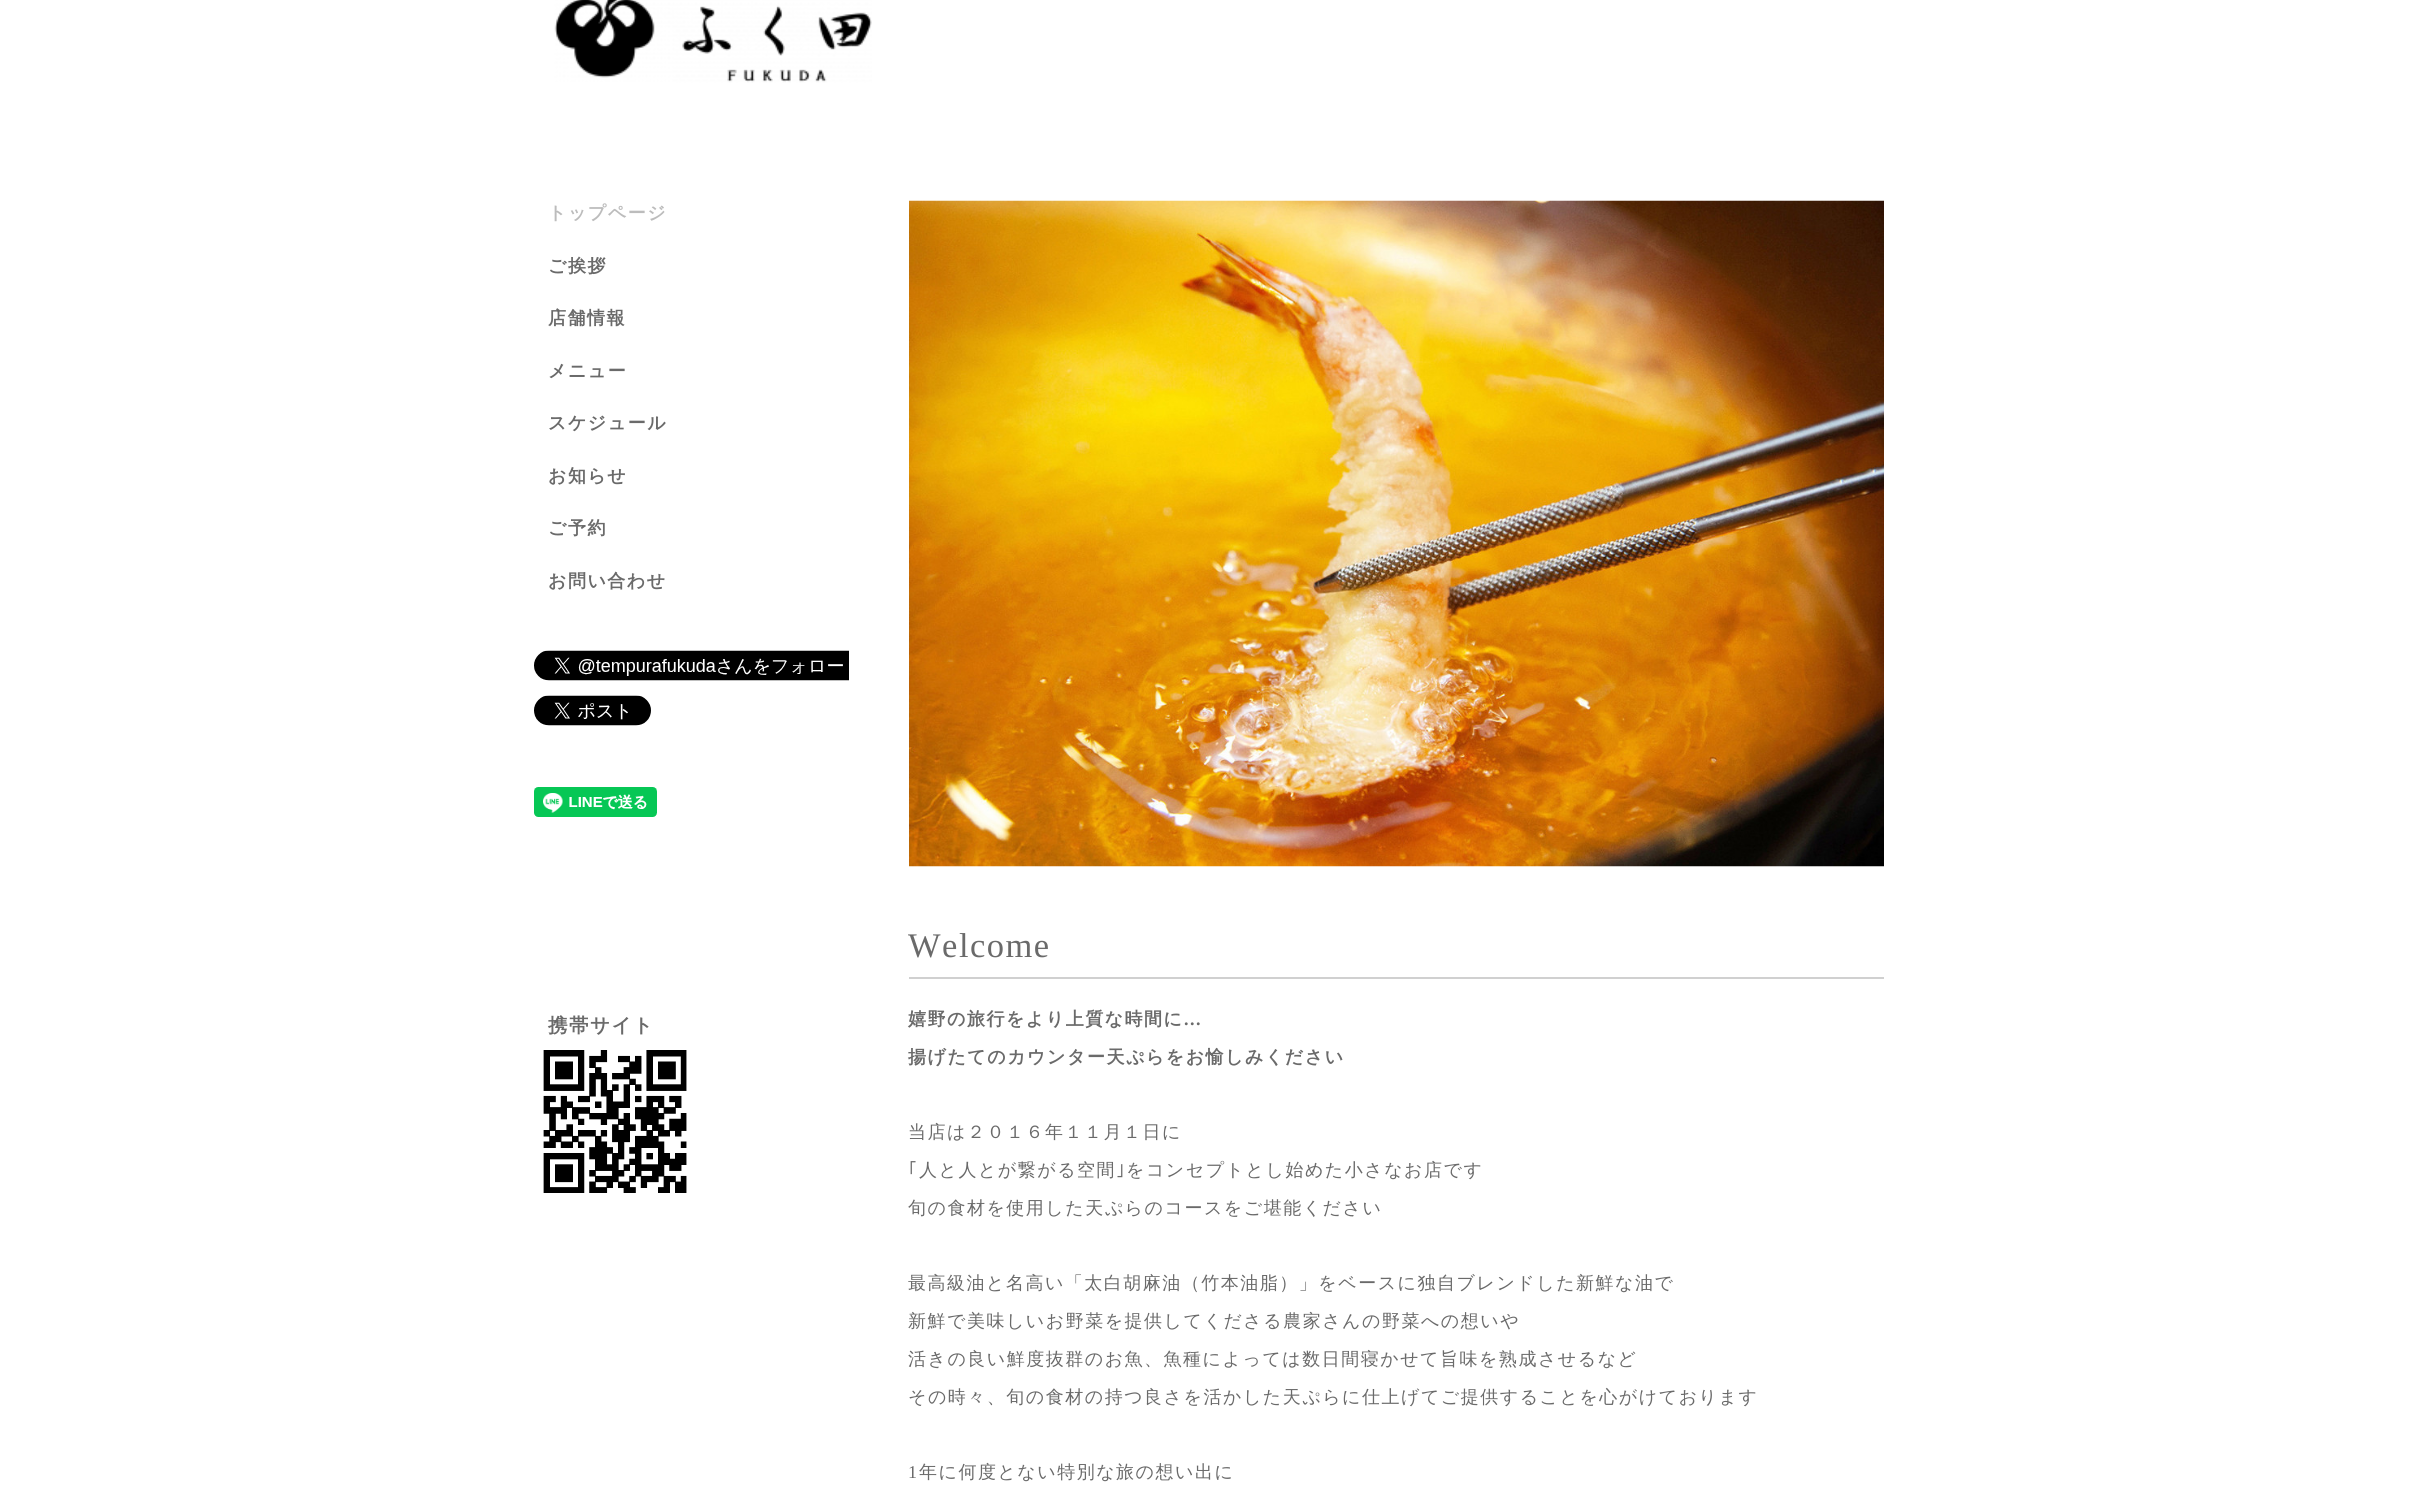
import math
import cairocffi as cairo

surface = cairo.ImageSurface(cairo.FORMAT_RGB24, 2416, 1512)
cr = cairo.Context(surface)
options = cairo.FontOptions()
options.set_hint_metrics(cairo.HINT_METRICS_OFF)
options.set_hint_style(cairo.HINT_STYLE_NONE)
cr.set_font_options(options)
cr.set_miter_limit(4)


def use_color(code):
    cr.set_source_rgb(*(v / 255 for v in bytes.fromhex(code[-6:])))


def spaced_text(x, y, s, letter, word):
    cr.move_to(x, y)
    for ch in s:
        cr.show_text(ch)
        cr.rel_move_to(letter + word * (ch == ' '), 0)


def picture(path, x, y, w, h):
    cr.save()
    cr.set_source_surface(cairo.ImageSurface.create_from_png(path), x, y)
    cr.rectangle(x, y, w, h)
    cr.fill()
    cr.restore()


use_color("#ffffff")
cr.paint()
picture("img1.png", 554, 0, 318, 83)
cr.select_font_face("WenQuanYi Zen Hei", cairo.FONT_SLANT_NORMAL, cairo.FONT_WEIGHT_BOLD)
cr.set_font_size(18)
use_color("#bcbcbc")
spaced_text(548, 219, "トップページ", 1.5, 0)
use_color("#6a6a6a")
spaced_text(548, 272, "ご挨拶", 1.5, 0)
spaced_text(548, 324, "店舗情報", 1.5, 0)
spaced_text(548, 377, "メニュー", 1.5, 0)
spaced_text(548, 429, "スケジュール", 1.5, 0)
spaced_text(548, 482, "お知らせ", 1.5, 0)
spaced_text(548, 534, "ご予約", 1.5, 0)
spaced_text(548, 587, "お問い合わせ", 1.5, 0)
picture("img2.png", 534, 650, 315, 31)
picture("img3.png", 534, 695, 117, 31)
picture("img4.png", 534, 787, 123, 30)
cr.set_font_size(19.5)
spaced_text(548, 1032, "携帯サイト", 1.5, 0)
picture("img5.png", 543, 1050, 144, 143)
picture("img6.png", 909, 200, 975, 667)
use_color("#d0d0d0")
cr.rectangle(909, 977, 975, 2)
cr.fill()
cr.select_font_face("Liberation Serif")
cr.set_font_size(34.5)
use_color("#6a6a6a")
spaced_text(908, 957, "Welcome", 1.5, 0)
cr.select_font_face("WenQuanYi Zen Hei", cairo.FONT_SLANT_NORMAL, cairo.FONT_WEIGHT_BOLD)
cr.set_font_size(18)
spaced_text(908, 1025, "嬉野の旅行をより上質な時間に", 1.5, 0)
cr.select_font_face("Liberation Serif", cairo.FONT_SLANT_NORMAL, cairo.FONT_WEIGHT_BOLD)
spaced_text(1184, 1025, "...", 1.5, 0)
cr.select_font_face("WenQuanYi Zen Hei", cairo.FONT_SLANT_NORMAL, cairo.FONT_WEIGHT_BOLD)
spaced_text(908, 1063, "揚げたてのカウンター天ぷらをお愉しみください", 1.5, 0)
cr.select_font_face("WenQuanYi Zen Hei Medium")
spaced_text(908, 1138, "当店は２０１６年１１月１日に", 1.5, 0)
cr.select_font_face("IPAPGothic")
spaced_text(908, 1176, "｢", 1.5, 0)
cr.select_font_face("WenQuanYi Zen Hei Medium")
spaced_text(919, 1176, "人と人とが繋がる空間", 1.5, 0)
cr.select_font_face("IPAPGothic")
spaced_text(1116, 1176, "｣", 1.5, 0)
cr.select_font_face("WenQuanYi Zen Hei Medium")
spaced_text(1126, 1176, "をコンセプトとし始めた小さなお店です", 1.5, 0)
spaced_text(908, 1214, "旬の食材を使用した天ぷらのコースをご堪能ください", 1.5, 0)
spaced_text(908, 1289, "最高級油と名高い「太白胡麻油（竹本油脂）」をベースに独自ブレンドした新鮮な油で", 1.5, 0)
spaced_text(908, 1327, "新鮮で美味しいお野菜を提供してくださる農家さんの野菜への想いや", 1.5, 0)
spaced_text(908, 1365, "活きの良い鮮度抜群のお魚、魚種によっては数日間寝かせて旨味を熟成させるなど", 1.5, 0)
spaced_text(908, 1403, "その時々、旬の食材の持つ良さを活かした天ぷらに仕上げてご提供することを心がけております", 1.5, 0)
cr.select_font_face("Liberation Serif")
spaced_text(908, 1478, "1", 1.5, 0)
cr.select_font_face("WenQuanYi Zen Hei Medium")
spaced_text(919, 1478, "年に何度とない特別な旅の想い出に", 1.5, 0)
surface.write_to_png("result.png")
